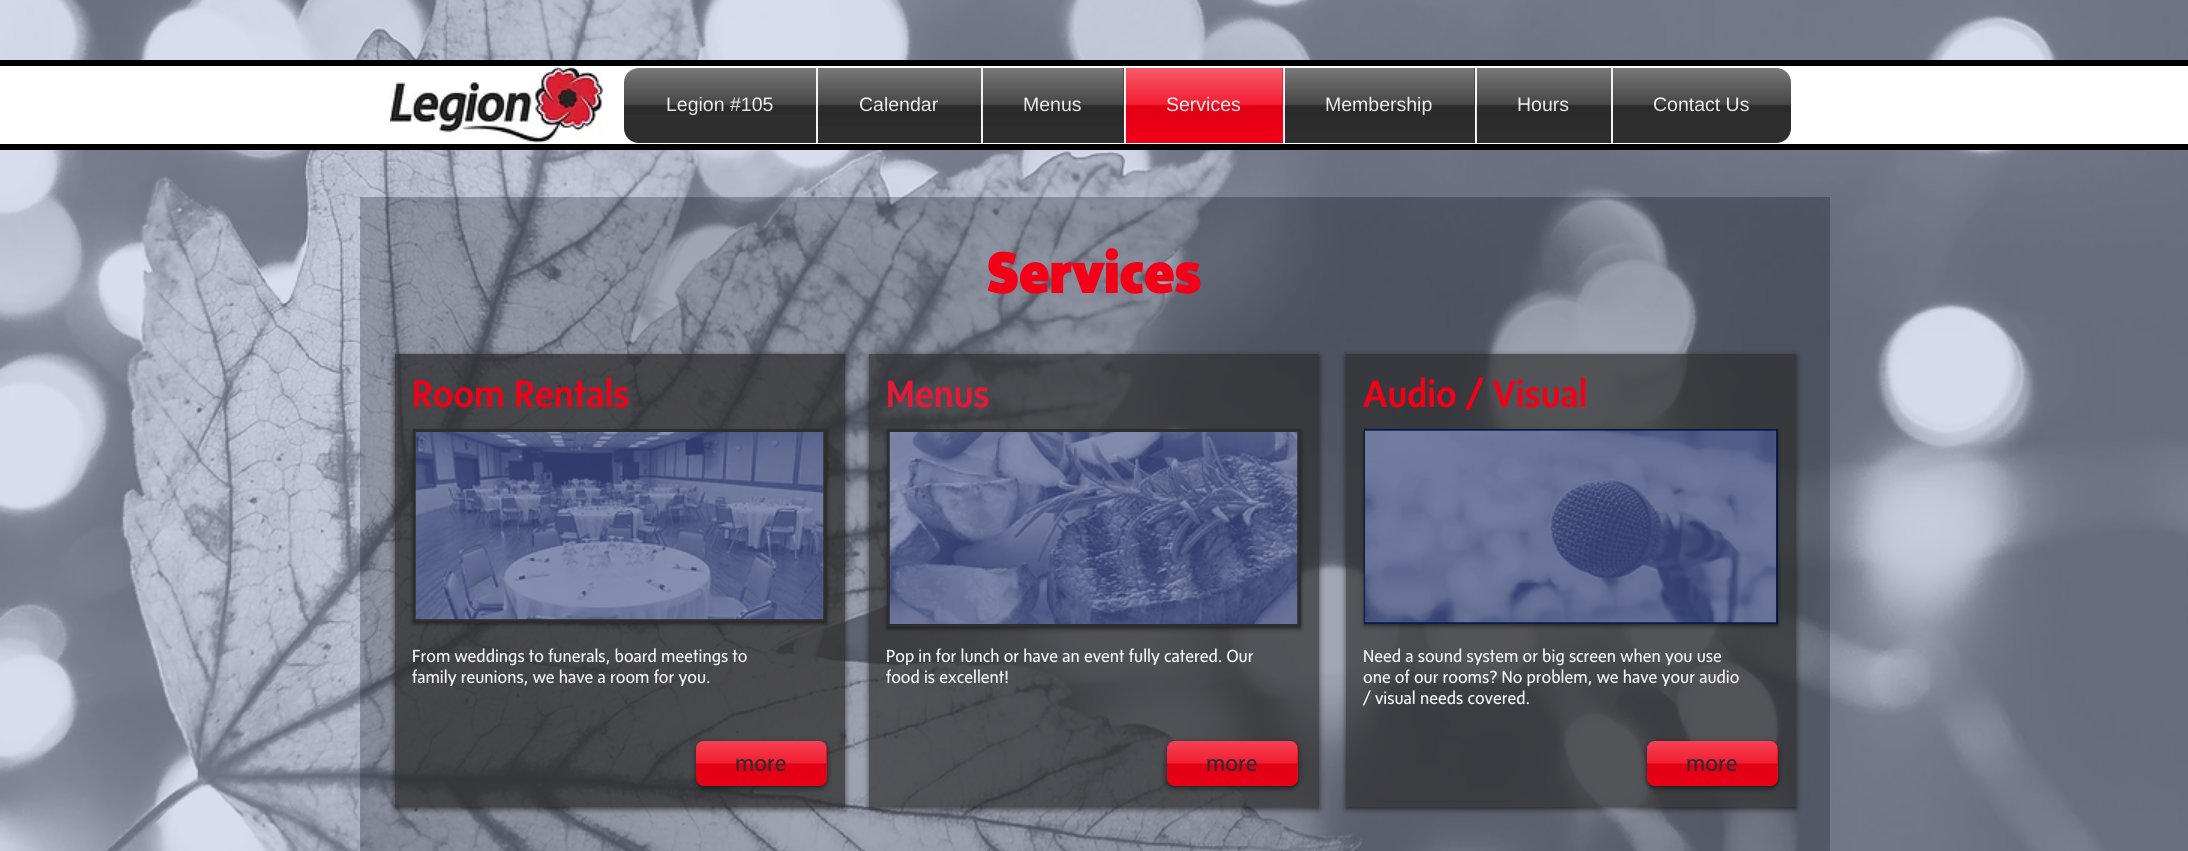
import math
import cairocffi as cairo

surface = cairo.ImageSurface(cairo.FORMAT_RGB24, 2188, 851)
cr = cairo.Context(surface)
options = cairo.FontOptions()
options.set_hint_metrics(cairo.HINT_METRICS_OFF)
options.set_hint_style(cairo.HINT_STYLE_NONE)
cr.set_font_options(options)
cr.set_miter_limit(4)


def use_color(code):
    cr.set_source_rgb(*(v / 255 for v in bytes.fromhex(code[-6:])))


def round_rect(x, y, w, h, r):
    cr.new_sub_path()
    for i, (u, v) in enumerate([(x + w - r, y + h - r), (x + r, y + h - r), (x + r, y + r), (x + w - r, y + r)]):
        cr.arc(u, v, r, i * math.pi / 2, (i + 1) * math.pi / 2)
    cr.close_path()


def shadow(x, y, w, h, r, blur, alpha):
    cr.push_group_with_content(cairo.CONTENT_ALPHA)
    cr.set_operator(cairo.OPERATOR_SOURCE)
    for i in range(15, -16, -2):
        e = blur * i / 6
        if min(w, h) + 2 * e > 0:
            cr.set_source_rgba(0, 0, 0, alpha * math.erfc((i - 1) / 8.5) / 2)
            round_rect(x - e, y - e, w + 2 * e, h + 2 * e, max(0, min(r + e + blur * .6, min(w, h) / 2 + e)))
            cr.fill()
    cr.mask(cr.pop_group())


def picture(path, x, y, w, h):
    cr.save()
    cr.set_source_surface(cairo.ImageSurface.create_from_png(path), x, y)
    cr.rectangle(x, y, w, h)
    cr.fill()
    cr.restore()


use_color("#b0c0e4")
cr.paint()
picture("img1.png", 0, 0, 2188, 851)
use_color("#000000")
cr.rectangle(0, 60, 2188, 6)
cr.fill()
cr.rectangle(0, 144, 2188, 6)
cr.fill()
use_color("#ffffff")
cr.rectangle(0, 66, 2188, 78)
cr.fill()
picture("img2.png", 390, 67, 213, 76)
picture("img3.png", 624, 68, 1167, 15)
use_color("#2f2e2e")
cr.new_path()
cr.move_to(639, 68)
cr.line_to(816, 68)
cr.line_to(816, 143)
cr.line_to(639, 143)
cr.curve_to(630.5, 143, 624, 136.5, 624, 128)
cr.line_to(624, 83)
cr.curve_to(624, 74.5, 630.5, 68, 639, 68)
cr.close_path()
cr.fill()
cr.select_font_face("Liberation Sans")
cr.set_font_size(19.5)
use_color("#f2f2f2")
cr.move_to(666, 111)
cr.show_text("Legion #105")
picture("img4.png", 624, 68, 192, 47)
use_color("#2f2e2e")
cr.rectangle(818, 68, 163, 75)
cr.fill()
use_color("#f2f2f2")
cr.rectangle(816, 68, 2, 75)
cr.fill()
cr.move_to(859, 111)
cr.show_text("Calendar")
picture("img5.png", 817, 68, 164, 59)
use_color("#2f2e2e")
cr.rectangle(983, 68, 141, 75)
cr.fill()
use_color("#f2f2f2")
cr.rectangle(981, 68, 2, 75)
cr.fill()
cr.move_to(1023, 111)
cr.show_text("Menus")
picture("img6.png", 982, 68, 142, 59)
use_color("#f20017")
cr.rectangle(1126, 68, 157, 75)
cr.fill()
use_color("#f2f2f2")
cr.rectangle(1124, 68, 2, 75)
cr.fill()
cr.move_to(1166, 111)
cr.show_text("Services")
picture("img7.png", 1125, 68, 158, 68)
use_color("#2f2e2e")
cr.rectangle(1285, 68, 190, 75)
cr.fill()
use_color("#f2f2f2")
cr.rectangle(1283, 68, 2, 75)
cr.fill()
cr.move_to(1325, 111)
cr.show_text("Membership")
picture("img8.png", 1284, 68, 191, 68)
use_color("#2f2e2e")
cr.rectangle(1477, 68, 134, 75)
cr.fill()
use_color("#f2f2f2")
cr.rectangle(1475, 68, 2, 75)
cr.fill()
cr.move_to(1517, 111)
cr.show_text("Hours")
picture("img9.png", 1476, 68, 135, 68)
use_color("#2f2e2e")
cr.new_path()
cr.move_to(1611, 68)
cr.line_to(1776, 68)
cr.curve_to(1784.5, 68, 1791, 74.5, 1791, 83)
cr.line_to(1791, 128)
cr.curve_to(1791, 136.5, 1784.5, 143, 1776, 143)
cr.line_to(1611, 143)
cr.close_path()
cr.fill()
use_color("#f2f2f2")
cr.rectangle(1611, 68, 2, 75)
cr.fill()
cr.move_to(1653, 111)
cr.show_text("Contact Us")
picture("img10.png", 1613, 68, 178, 44)
cr.set_source_rgba(0, 0, 0, 0.25)
cr.rectangle(360, 197, 1470, 654)
cr.fill()
cr.select_font_face("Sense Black")
cr.set_font_size(60)
use_color("#f20017")
cr.move_to(987, 293)
cr.show_text("Services")
cr.save()
cr.set_fill_rule(cairo.FILL_RULE_EVEN_ODD)
cr.new_path()
cr.move_to(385, 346)
cr.line_to(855, 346)
cr.line_to(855, 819)
cr.line_to(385, 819)
cr.close_path()
cr.move_to(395, 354)
cr.line_to(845, 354)
cr.line_to(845, 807)
cr.line_to(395, 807)
cr.close_path()
cr.clip()
use_color("#000000")
shadow(395, 356, 450, 453, 0, 3, 0.6)
cr.restore()
cr.set_source_rgba(0.184, 0.18, 0.18, 0.75)
cr.rectangle(395, 354, 450, 453)
cr.fill()
cr.select_font_face("Sense Medium")
cr.set_font_size(39)
use_color("#f20017")
cr.move_to(412, 407)
cr.show_text("Room Rentals")
use_color("#000000")
shadow(413, 431, 414, 193, 0, 2, 0.5)
use_color("#2f2e2e")
cr.rectangle(413, 429, 414, 194)
cr.fill()
picture("img11.png", 415, 432, 409, 188)
cr.select_font_face("Sense")
cr.set_font_size(18)
use_color("#f2f2f2")
cr.move_to(412, 662)
cr.show_text("From weddings to funerals, board meetings to")
cr.move_to(412, 683)
cr.show_text("family reunions, we have a room for you.")
use_color("#000000")
shadow(696, 743, 131, 45, 8, 3, 0.6)
use_color("#f20017")
round_rect(696, 741, 131, 45, 8)
cr.fill()
picture("img12.png", 696, 741, 131, 45)
cr.set_font_size(24)
use_color("#2f2e2e")
cr.move_to(735, 771)
cr.show_text("more")
cr.save()
cr.set_fill_rule(cairo.FILL_RULE_EVEN_ODD)
cr.new_path()
cr.move_to(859, 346)
cr.line_to(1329, 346)
cr.line_to(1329, 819)
cr.line_to(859, 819)
cr.close_path()
cr.move_to(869, 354)
cr.line_to(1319, 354)
cr.line_to(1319, 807)
cr.line_to(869, 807)
cr.close_path()
cr.clip()
use_color("#000000")
shadow(869, 356, 450, 453, 0, 3, 0.6)
cr.restore()
cr.set_source_rgba(0.184, 0.18, 0.18, 0.68)
cr.rectangle(869, 354, 450, 453)
cr.fill()
cr.select_font_face("Sense Medium")
cr.set_font_size(39)
use_color("#e51937")
cr.move_to(886, 407)
cr.show_text("Menus")
use_color("#000000")
shadow(887, 431, 414, 198, 0, 2, 0.5)
use_color("#2f2e2e")
cr.rectangle(887, 429, 414, 198)
cr.fill()
picture("img13.png", 889, 432, 409, 192)
cr.select_font_face("Sense")
cr.set_font_size(18)
use_color("#f2f2f2")
cr.move_to(886, 662)
cr.show_text("Pop in for lunch or have an event fully catered. Our")
cr.move_to(886, 683)
cr.show_text("food is excellent!")
use_color("#000000")
shadow(1167, 743, 131, 45, 8, 3, 0.6)
use_color("#f20017")
round_rect(1167, 741, 131, 45, 8)
cr.fill()
picture("img14.png", 1167, 741, 131, 45)
cr.set_font_size(24)
use_color("#2f2e2e")
cr.move_to(1206, 771)
cr.show_text("more")
cr.save()
cr.set_fill_rule(cairo.FILL_RULE_EVEN_ODD)
cr.new_path()
cr.move_to(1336, 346)
cr.line_to(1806, 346)
cr.line_to(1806, 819)
cr.line_to(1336, 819)
cr.close_path()
cr.move_to(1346, 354)
cr.line_to(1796, 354)
cr.line_to(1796, 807)
cr.line_to(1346, 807)
cr.close_path()
cr.clip()
use_color("#000000")
shadow(1346, 356, 450, 453, 0, 3, 0.6)
cr.restore()
cr.set_source_rgba(0.184, 0.18, 0.18, 0.68)
cr.rectangle(1346, 354, 450, 453)
cr.fill()
cr.select_font_face("Sense Medium")
cr.set_font_size(39)
use_color("#f20017")
cr.move_to(1363, 407)
cr.show_text("Audio / Visual")
use_color("#000000")
shadow(1364, 431, 414, 195, 0, 2, 0.5)
use_color("#071b49")
cr.rectangle(1364, 429, 414, 195)
cr.fill()
picture("img15.png", 1365, 430, 411, 193)
cr.select_font_face("Sense")
cr.set_font_size(18)
use_color("#f2f2f2")
cr.move_to(1363, 662)
cr.show_text("Need a sound system or big screen when you use")
cr.move_to(1363, 683)
cr.show_text("one of our rooms? No problem, we have your audio")
cr.move_to(1363, 704)
cr.show_text("/ visual needs covered.")
use_color("#000000")
shadow(1647, 743, 131, 45, 8, 3, 0.6)
use_color("#f20017")
round_rect(1647, 741, 131, 45, 8)
cr.fill()
picture("img16.png", 1647, 741, 131, 45)
cr.set_font_size(24)
use_color("#2f2e2e")
cr.move_to(1686, 771)
cr.show_text("more")
surface.write_to_png("result.png")
